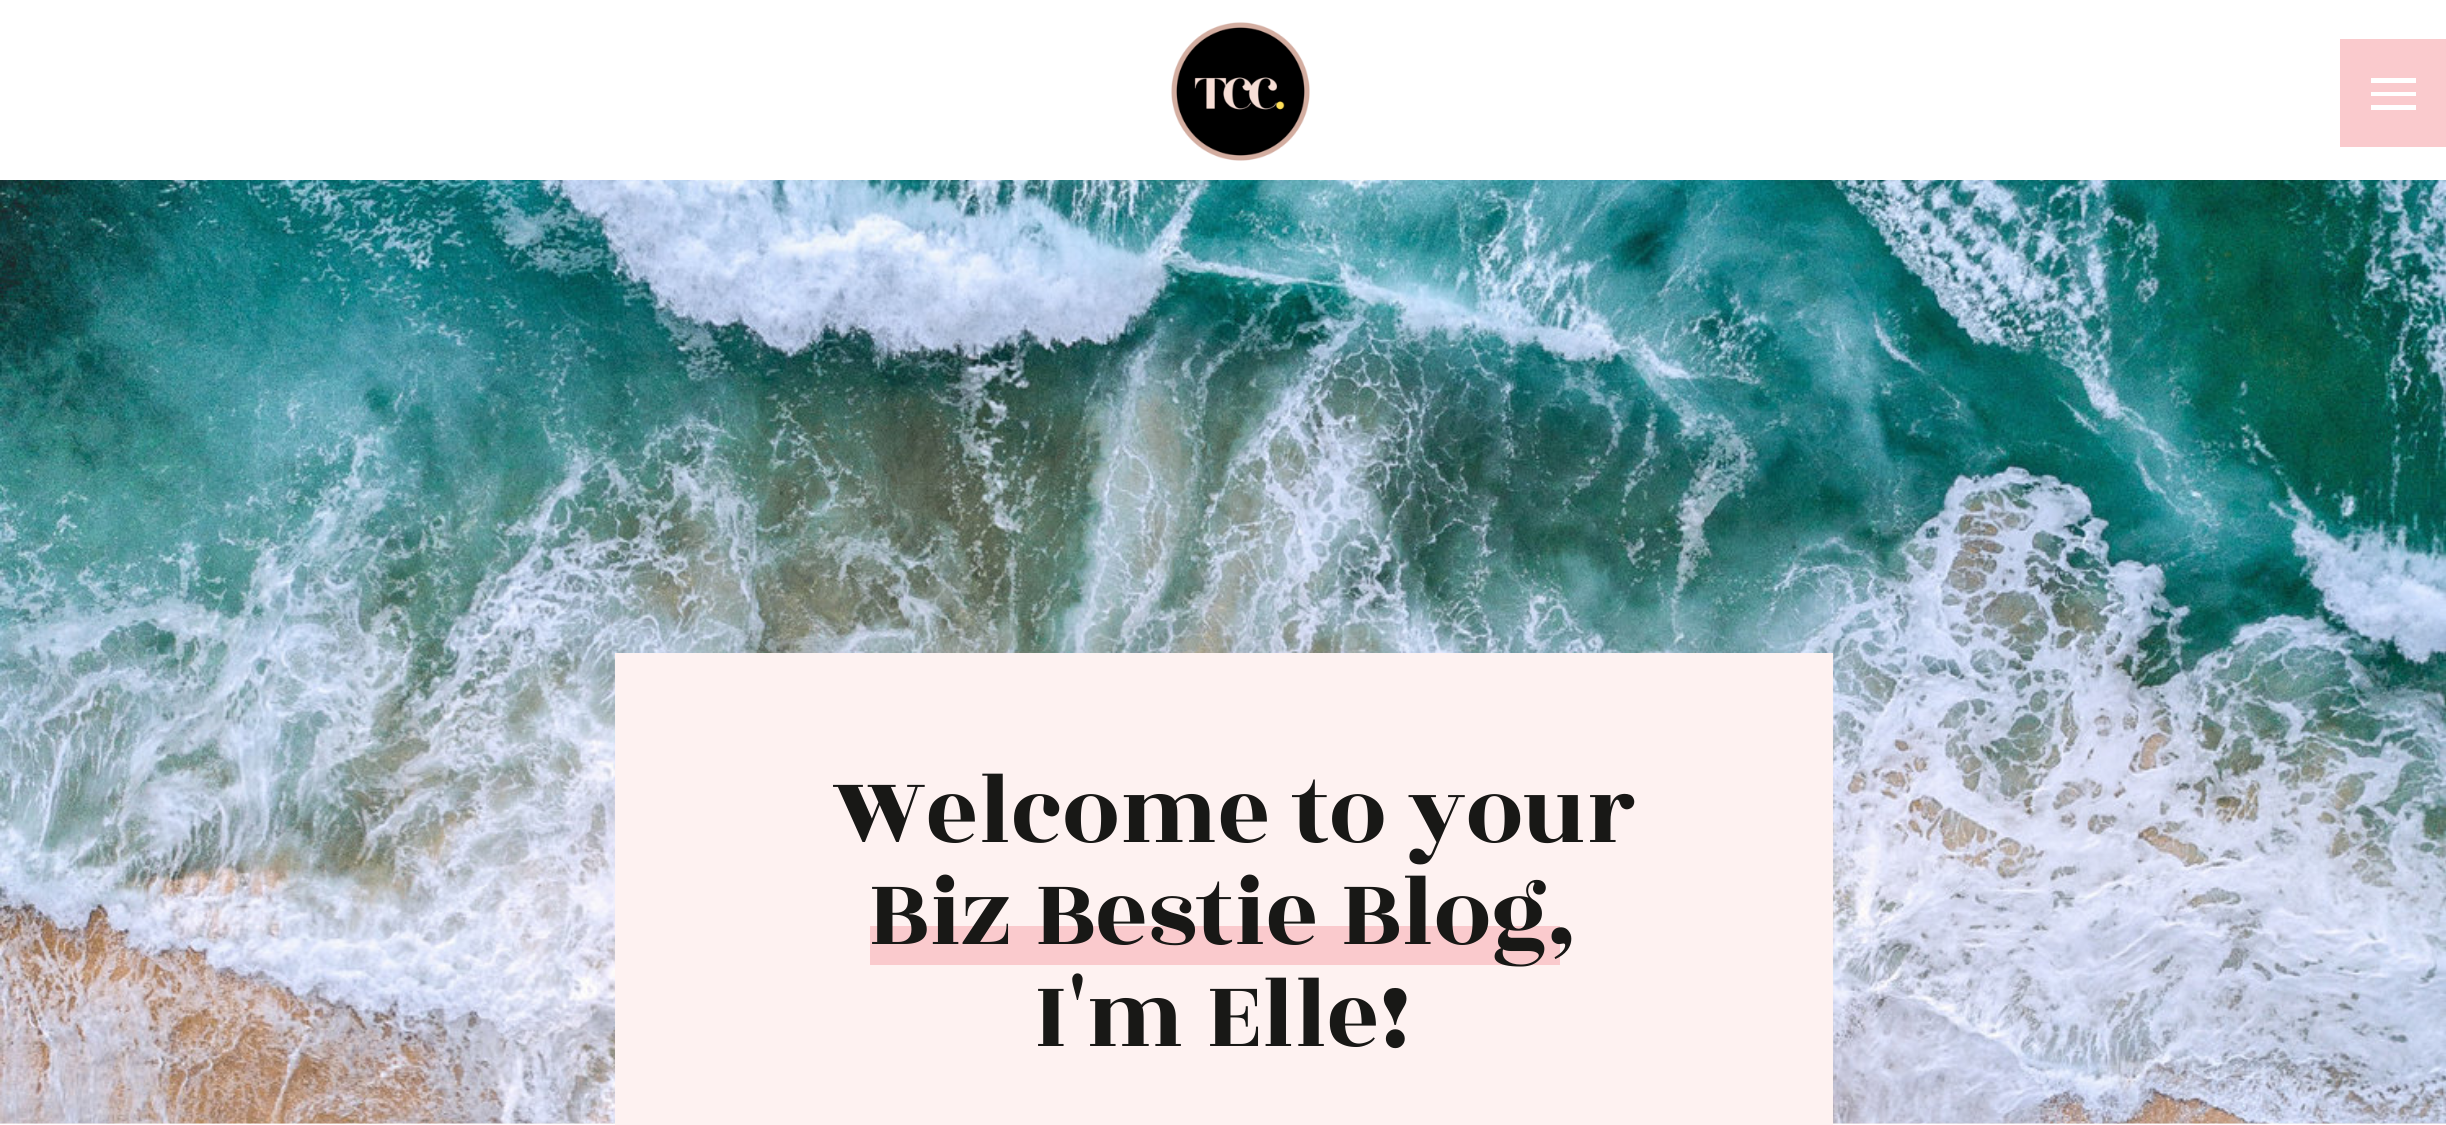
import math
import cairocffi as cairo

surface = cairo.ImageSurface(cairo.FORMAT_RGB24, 2446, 1125)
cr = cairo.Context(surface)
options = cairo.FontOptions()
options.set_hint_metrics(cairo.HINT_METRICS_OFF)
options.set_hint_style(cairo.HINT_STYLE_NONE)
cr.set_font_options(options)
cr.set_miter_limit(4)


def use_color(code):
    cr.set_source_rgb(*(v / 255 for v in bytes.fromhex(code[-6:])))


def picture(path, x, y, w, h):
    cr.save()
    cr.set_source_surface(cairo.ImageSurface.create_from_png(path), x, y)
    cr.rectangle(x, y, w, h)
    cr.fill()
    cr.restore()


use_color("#ffffff")
cr.paint()
picture("img1.png", 1171, 22, 139, 139)
use_color("#facacd")
cr.rectangle(2340, 39, 106, 108)
cr.fill()
use_color("#ffffff")
cr.new_path()
cr.move_to(2371, 92)
cr.line_to(2416, 92)
cr.line_to(2416, 96)
cr.line_to(2371, 96)
cr.close_path()
cr.move_to(2371, 78)
cr.line_to(2416, 78)
cr.line_to(2416, 83)
cr.line_to(2371, 83)
cr.close_path()
cr.move_to(2371, 105)
cr.line_to(2416, 105)
cr.line_to(2416, 110)
cr.line_to(2371, 110)
cr.close_path()
cr.fill()
use_color("#fef2f1")
cr.rectangle(0, 1123, 2446, 1)
cr.fill()
picture("img2.png", 0, 180, 2446, 944)
cr.rectangle(615, 653, 1218, 472)
cr.fill()
cr.select_font_face("Rozha One")
cr.set_font_size(102)
use_color("#181816")
cr.move_to(832, 842)
cr.show_text("Welcome to your")
use_color("#facacd")
cr.rectangle(870, 926, 690, 39)
cr.fill()
use_color("#181816")
cr.move_to(868, 944)
cr.show_text("Biz Bestie Blog,")
cr.move_to(1034, 1046)
cr.show_text("I'm Elle!")
surface.write_to_png("result.png")
